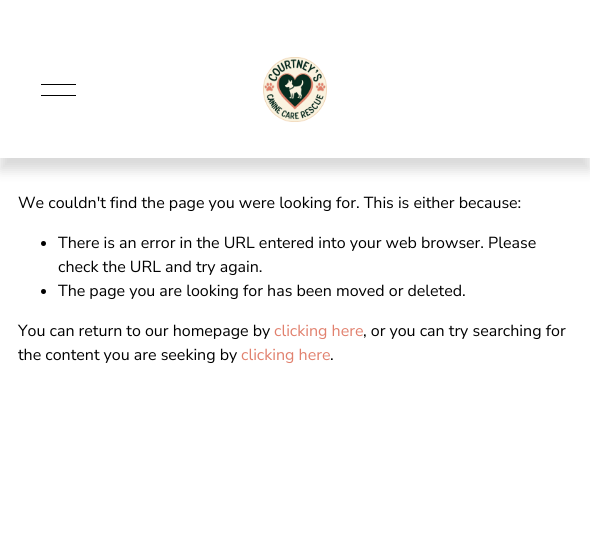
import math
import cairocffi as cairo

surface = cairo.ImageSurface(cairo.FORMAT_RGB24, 590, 560)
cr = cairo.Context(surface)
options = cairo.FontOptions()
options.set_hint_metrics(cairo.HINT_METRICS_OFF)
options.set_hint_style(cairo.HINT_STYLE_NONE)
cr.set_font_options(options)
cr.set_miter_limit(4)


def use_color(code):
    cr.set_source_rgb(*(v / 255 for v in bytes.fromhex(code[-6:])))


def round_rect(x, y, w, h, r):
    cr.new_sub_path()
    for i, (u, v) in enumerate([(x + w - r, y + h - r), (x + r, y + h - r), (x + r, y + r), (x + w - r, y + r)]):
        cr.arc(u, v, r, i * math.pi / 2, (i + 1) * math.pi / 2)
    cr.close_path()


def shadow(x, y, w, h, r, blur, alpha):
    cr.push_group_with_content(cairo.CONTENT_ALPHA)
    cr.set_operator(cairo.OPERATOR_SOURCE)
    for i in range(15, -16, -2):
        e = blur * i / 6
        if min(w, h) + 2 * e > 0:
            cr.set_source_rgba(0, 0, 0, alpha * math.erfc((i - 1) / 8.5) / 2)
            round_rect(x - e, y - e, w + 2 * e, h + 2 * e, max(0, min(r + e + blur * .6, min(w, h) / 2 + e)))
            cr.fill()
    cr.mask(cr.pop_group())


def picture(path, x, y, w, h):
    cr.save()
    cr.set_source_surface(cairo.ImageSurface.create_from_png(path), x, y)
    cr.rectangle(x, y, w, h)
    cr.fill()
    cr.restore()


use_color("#ffffff")
cr.paint()
cr.save()
cr.rectangle(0, 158, 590, 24)
cr.clip()
use_color("#d9d9d9")
shadow(0, 12, 590, 158, 0, 6, 1)
cr.restore()
use_color("#000000")
cr.rectangle(41, 84, 35, 1)
cr.fill()
cr.rectangle(41, 95, 35, 1)
cr.fill()
picture("img1.png", 263, 57, 64, 65)
cr.select_font_face("Nunito Sans")
cr.set_font_size(16)
cr.move_to(18, 208)
cr.show_text("We couldn't find the page you were looking for. This is either because:")
cr.new_path()
cr.arc(43.5, 243.5, 2.5, 0, 2 * math.pi)
cr.fill()
cr.move_to(58, 248)
cr.show_text("There is an error in the URL entered into your web browser. Please")
cr.move_to(58, 272)
cr.show_text("check the URL and try again.")
cr.new_path()
cr.arc(43.5, 291.5, 2.5, 0, 2 * math.pi)
cr.fill()
cr.move_to(58, 296)
cr.show_text("The page you are looking for has been moved or deleted.")
cr.move_to(18, 336)
cr.show_text("You can return to our homepage by")
use_color("#e1806d")
cr.move_to(274, 336)
cr.show_text("clicking here")
use_color("#000000")
cr.move_to(363, 336)
cr.show_text(", or you can try searching for")
cr.move_to(18, 360)
cr.show_text("the content you are seeking by")
use_color("#e1806d")
cr.move_to(241, 360)
cr.show_text("clicking here")
use_color("#000000")
cr.move_to(330, 360)
cr.show_text(".")
surface.write_to_png("result.png")
